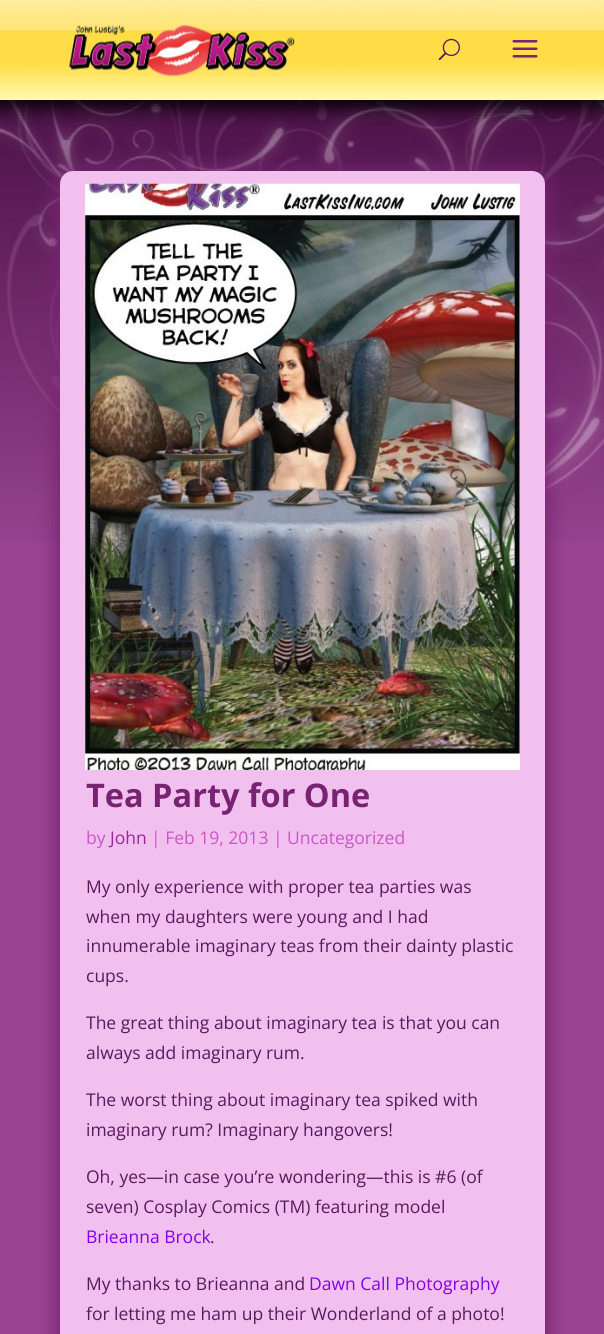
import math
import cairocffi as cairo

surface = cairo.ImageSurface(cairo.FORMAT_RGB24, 604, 1334)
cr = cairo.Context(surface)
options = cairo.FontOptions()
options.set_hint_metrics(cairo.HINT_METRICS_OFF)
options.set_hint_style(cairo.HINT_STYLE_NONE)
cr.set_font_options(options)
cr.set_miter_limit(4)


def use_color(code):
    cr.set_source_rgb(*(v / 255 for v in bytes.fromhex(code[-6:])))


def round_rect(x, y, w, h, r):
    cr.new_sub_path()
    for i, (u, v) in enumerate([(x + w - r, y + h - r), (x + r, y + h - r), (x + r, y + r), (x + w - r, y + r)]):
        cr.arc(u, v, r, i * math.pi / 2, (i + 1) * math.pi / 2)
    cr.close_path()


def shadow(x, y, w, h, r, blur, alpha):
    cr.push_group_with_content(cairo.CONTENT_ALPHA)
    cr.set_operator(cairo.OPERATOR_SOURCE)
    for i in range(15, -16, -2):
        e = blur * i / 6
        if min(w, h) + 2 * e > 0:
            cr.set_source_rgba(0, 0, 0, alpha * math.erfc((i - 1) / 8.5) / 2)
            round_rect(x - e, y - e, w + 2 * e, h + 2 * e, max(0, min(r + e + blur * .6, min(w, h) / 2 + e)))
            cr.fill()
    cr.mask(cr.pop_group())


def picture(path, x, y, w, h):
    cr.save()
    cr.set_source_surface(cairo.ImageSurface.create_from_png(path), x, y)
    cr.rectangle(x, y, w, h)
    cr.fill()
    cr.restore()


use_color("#994491")
cr.paint()
picture("img5.png", 0, 100, 604, 442)
use_color("#000000")
shadow(-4, 0, 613, 108, 0, 9.5, 1)
picture("img1.png", 0, 0, 604, 100)
picture("img2.png", 69, 24, 226, 53)
picture("img3.png", 438, 38, 22, 23)
picture("img4.png", 512, 40, 26, 18)
use_color("#782371")
shadow(56, 171, 493, 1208, 16, 9.5, 1)
use_color("#f2c0ee")
round_rect(60, 171, 485, 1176, 13)
cr.fill()
picture("img6.png", 85, 183, 435, 587)
cr.select_font_face("Open Sans", cairo.FONT_SLANT_NORMAL, cairo.FONT_WEIGHT_BOLD)
cr.set_font_size(32.5)
use_color("#782371")
cr.move_to(86, 807)
cr.show_text("Tea Party for One")
cr.select_font_face("Open Sans")
cr.set_font_size(17.5)
use_color("#c857c7")
cr.move_to(86, 844)
cr.show_text("by")
use_color("#9a2698")
cr.move_to(110, 844)
cr.show_text("John")
use_color("#c857c7")
cr.move_to(151, 844)
cr.show_text("| Feb 19, 2013 | Uncategorized")
use_color("#581a5f")
cr.move_to(86, 893)
cr.show_text("My only experience with proper tea parties was")
cr.move_to(86, 923)
cr.show_text("when my daughters were young and I had")
cr.move_to(86, 952)
cr.show_text("innumerable imaginary teas from their dainty plastic")
cr.move_to(86, 982)
cr.show_text("cups.")
cr.move_to(86, 1029)
cr.show_text("The great thing about imaginary tea is that you can")
cr.move_to(86, 1059)
cr.show_text("always add imaginary rum.")
cr.move_to(86, 1106)
cr.show_text("The worst thing about imaginary tea spiked with")
cr.move_to(86, 1136)
cr.show_text("imaginary rum? Imaginary hangovers!")
cr.move_to(86, 1183)
cr.show_text("Oh, yes—in case you’re wondering—this is #6 (of")
cr.move_to(86, 1213)
cr.show_text("seven) Cosplay Comics (TM) featuring model")
use_color("#8300e9")
cr.move_to(86, 1243)
cr.show_text("Brieanna Brock")
use_color("#581a5f")
cr.move_to(210, 1243)
cr.show_text(".")
cr.move_to(86, 1290)
cr.show_text("My thanks to Brieanna and")
use_color("#8300e9")
cr.move_to(309, 1290)
cr.show_text("Dawn Call Photography")
use_color("#581a5f")
cr.move_to(86, 1320)
cr.show_text("for letting me ham up their Wonderland of a photo!")
surface.write_to_png("result.png")
